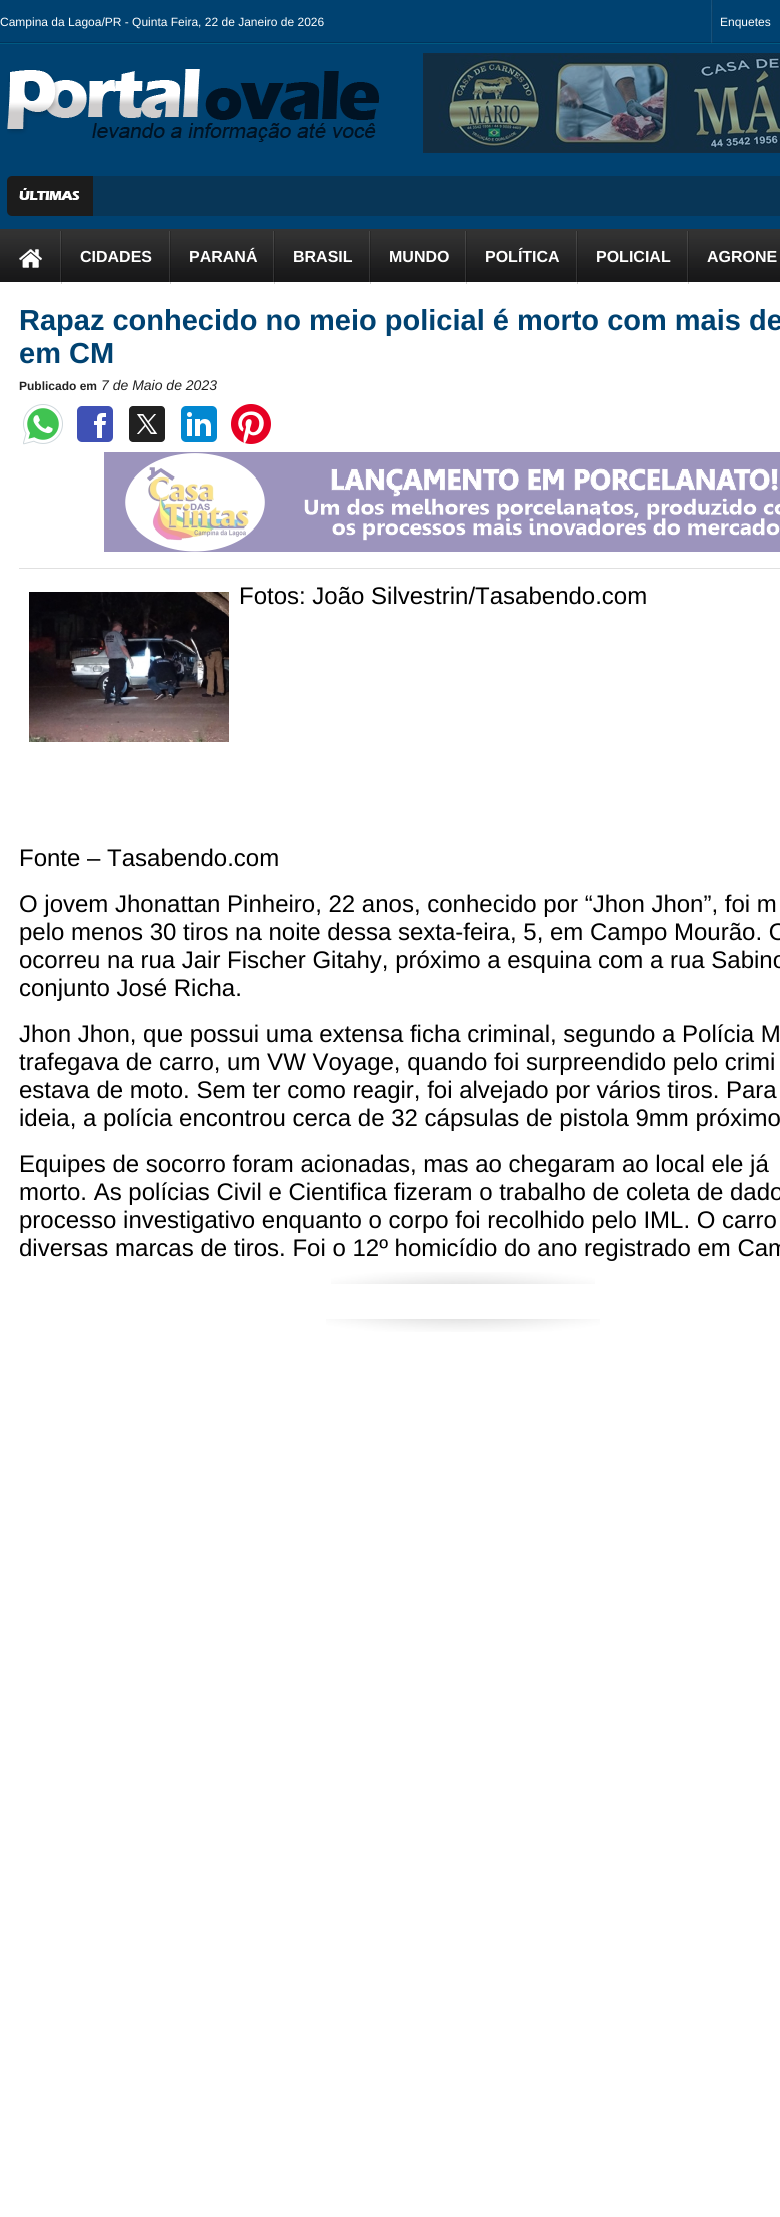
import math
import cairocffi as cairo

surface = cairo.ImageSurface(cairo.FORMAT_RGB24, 780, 2217)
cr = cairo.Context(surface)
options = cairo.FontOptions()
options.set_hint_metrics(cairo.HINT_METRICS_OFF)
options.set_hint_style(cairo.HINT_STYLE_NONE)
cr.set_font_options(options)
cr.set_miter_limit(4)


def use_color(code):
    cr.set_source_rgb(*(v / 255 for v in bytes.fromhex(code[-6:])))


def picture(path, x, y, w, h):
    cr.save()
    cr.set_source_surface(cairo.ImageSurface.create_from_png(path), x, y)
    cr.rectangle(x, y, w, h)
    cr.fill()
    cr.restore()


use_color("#ffffff")
cr.paint()
picture("img1.png", 0, 0, 780, 282)
cr.select_font_face("Liberation Sans")
cr.set_font_size(12)
use_color("#ffffff")
cr.move_to(0, 26)
cr.show_text("Campina da Lagoa/PR - Quinta Feira, 22 de Janeiro de 2026")
picture("img2.png", 711, 0, 2, 43)
cr.move_to(720, 26)
cr.show_text("Enquetes")
picture("img3.png", 7, 69, 373, 73)
picture("img4.png", 423, 53, 357, 100)
picture("img5.png", 7, 176, 96, 40)
use_color("#083657")
cr.rectangle(103, 176, 677, 40)
cr.fill()
picture("img6.png", 60, 231, 2, 53)
picture("img7.png", 19, 249, 23, 19)
picture("img6.png", 169, 231, 2, 53)
cr.select_font_face("Liberation Sans", cairo.FONT_SLANT_NORMAL, cairo.FONT_WEIGHT_BOLD)
cr.set_font_size(16)
use_color("#ffffff")
cr.move_to(80, 262)
cr.show_text("CIDADES")
picture("img6.png", 273, 231, 2, 53)
cr.move_to(189, 262)
cr.show_text("PARANÁ")
picture("img6.png", 369, 231, 2, 53)
cr.move_to(293, 262)
cr.show_text("BRASIL")
picture("img6.png", 465, 231, 2, 53)
cr.move_to(389, 262)
cr.show_text("MUNDO")
picture("img6.png", 576, 231, 2, 53)
cr.move_to(485, 262)
cr.show_text("POLÍTICA")
picture("img6.png", 687, 231, 2, 53)
cr.move_to(596, 262)
cr.show_text("POLICIAL")
cr.move_to(707, 262)
cr.show_text("AGRONE")
cr.set_font_size(29)
use_color("#004271")
cr.move_to(19, 330)
cr.show_text("Rapaz conhecido no meio policial é morto com mais de")
cr.move_to(19, 363)
cr.show_text("em CM")
cr.set_font_size(12)
use_color("#222222")
cr.move_to(19, 390)
cr.show_text("Publicado em")
cr.select_font_face("Liberation Sans", cairo.FONT_SLANT_ITALIC)
cr.set_font_size(14)
cr.move_to(101, 390)
cr.show_text("7 de Maio de 2023")
picture("img8.png", 23, 404, 40, 41)
picture("img9.png", 77, 406, 36, 36)
picture("img10.png", 129, 406, 36, 36)
picture("img11.png", 181, 406, 36, 36)
picture("img12.png", 231, 404, 40, 40)
picture("img13.png", 104, 452, 676, 100)
use_color("#e0e0e0")
cr.rectangle(19, 568, 761, 1)
cr.fill()
picture("img14.png", 29, 592, 200, 150)
cr.select_font_face("Liberation Sans")
cr.set_font_size(24)
use_color("#000000")
cr.move_to(239, 604)
cr.show_text("Fotos: João Silvestrin/Tasabendo.com")
cr.move_to(19, 866)
cr.show_text("Fonte – Tasabendo.com")
cr.move_to(19, 912)
cr.show_text("O jovem Jhonattan Pinheiro, 22 anos, conhecido por “Jhon Jhon”, foi m")
cr.move_to(19, 940)
cr.show_text("pelo menos 30 tiros na noite dessa sexta-feira, 5, em Campo Mourão. O")
cr.move_to(19, 968)
cr.show_text("ocorreu na rua Jair Fischer Gitahy, próximo a esquina com a rua Sabino")
cr.move_to(19, 996)
cr.show_text("conjunto José Richa.")
cr.move_to(19, 1042)
cr.show_text("Jhon Jhon, que possui uma extensa ficha criminal, segundo a Polícia M")
cr.move_to(19, 1070)
cr.show_text("trafegava de carro, um VW Voyage, quando foi surpreendido pelo crimi")
cr.move_to(19, 1098)
cr.show_text("estava de moto. Sem ter como reagir, foi alvejado por vários tiros. Para")
cr.move_to(19, 1126)
cr.show_text("ideia, a polícia encontrou cerca de 32 cápsulas de pistola 9mm próximo")
cr.move_to(19, 1172)
cr.show_text("Equipes de socorro foram acionadas, mas ao chegaram ao local ele já")
cr.move_to(19, 1200)
cr.show_text("morto. As polícias Civil e Cientifica fizeram o trabalho de coleta de dado")
cr.move_to(19, 1228)
cr.show_text("processo investigativo enquanto o corpo foi recolhido pelo IML. O carro")
cr.move_to(19, 1256)
cr.show_text("diversas marcas de tiros. Foi o 12º homicídio do ano registrado em Cam")
picture("img15.png", 331, 1272, 264, 12)
picture("img16.png", 326, 1319, 274, 13)
surface.write_to_png("result.png")
